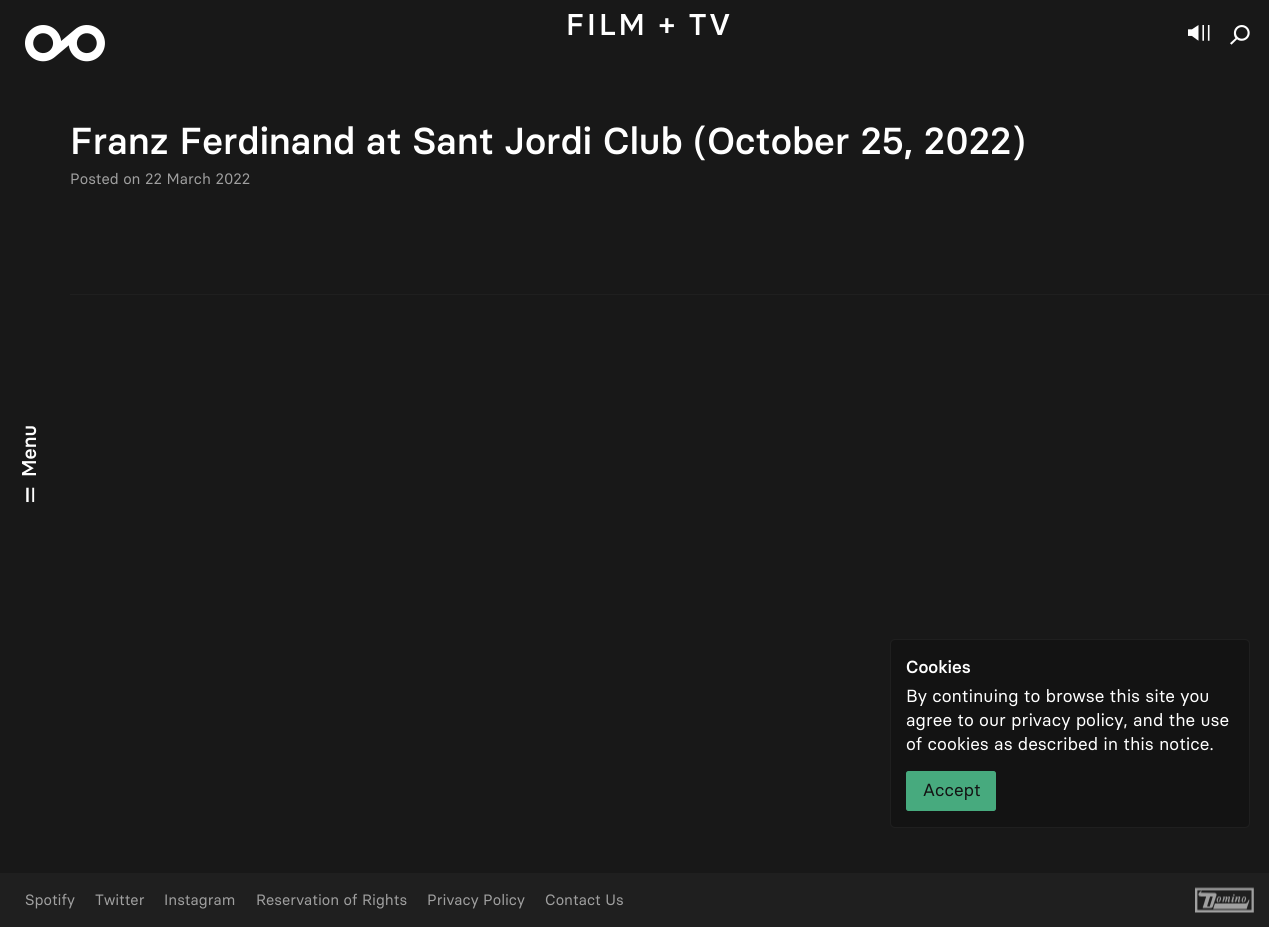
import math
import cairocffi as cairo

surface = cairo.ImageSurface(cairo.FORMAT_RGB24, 1269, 927)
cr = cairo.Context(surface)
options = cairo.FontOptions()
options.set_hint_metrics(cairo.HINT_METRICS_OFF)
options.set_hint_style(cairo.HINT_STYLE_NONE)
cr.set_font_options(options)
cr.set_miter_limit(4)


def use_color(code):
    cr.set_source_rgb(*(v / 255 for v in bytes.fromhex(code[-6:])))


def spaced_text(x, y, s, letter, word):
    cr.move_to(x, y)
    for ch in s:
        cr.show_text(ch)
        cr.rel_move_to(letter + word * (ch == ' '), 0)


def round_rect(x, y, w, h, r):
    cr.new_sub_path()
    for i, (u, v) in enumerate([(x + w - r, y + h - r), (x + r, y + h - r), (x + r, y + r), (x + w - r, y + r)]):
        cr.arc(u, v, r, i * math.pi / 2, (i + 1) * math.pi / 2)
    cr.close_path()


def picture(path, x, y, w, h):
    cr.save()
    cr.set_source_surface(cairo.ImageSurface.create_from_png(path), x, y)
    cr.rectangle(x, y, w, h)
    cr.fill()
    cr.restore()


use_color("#181818")
cr.paint()
picture("img1.png", 25, 25, 80, 37)
cr.select_font_face("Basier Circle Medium")
cr.set_font_size(30)
use_color("#ffffff")
spaced_text(566, 35, "FILM + TV", 3, 0)
use_color("#1f1f1f")
cr.rectangle(70, 294, 1199, 1)
cr.fill()
cr.set_font_size(37.5)
use_color("#ffffff")
cr.move_to(70, 154)
cr.show_text("Franz Ferdinand at Sant Jordi Club (October 25, 2022)")
cr.select_font_face("Basier Circle")
cr.set_font_size(15)
use_color("#a0a0a0")
cr.move_to(70, 184)
cr.show_text("Posted on 22 March 2022")
picture("img2.png", 1188, 25, 22, 16)
picture("img3.png", 1230, 25, 20, 20)
cr.select_font_face("Basier Circle Medium")
cr.set_font_size(20)
use_color("#ffffff")
cr.save()
cr.translate(36, 477)
cr.rotate(-90 * math.pi / 180)
cr.move_to(0, 0)
cr.show_text("Menu")
cr.restore()
picture("img4.png", 26, 487, 9, 16)
use_color("#131313")
round_rect(890.5, 639.5, 359, 188, 4.5)
cr.fill_preserve()
use_color("#1f1f1f")
cr.set_line_width(1)
cr.stroke()
cr.set_font_size(17.5)
use_color("#ffffff")
cr.move_to(906, 673)
cr.show_text("Cookies")
cr.select_font_face("Basier Circle")
cr.move_to(906, 702)
cr.show_text("By continuing to browse this site you")
cr.move_to(906, 726)
cr.show_text("agree to our privacy policy, and the use")
cr.move_to(906, 750)
cr.show_text("of cookies as described in this notice.")
use_color("#47aa7e")
round_rect(906.5, 771.5, 89, 39, 2)
cr.fill_preserve()
cr.stroke()
use_color("#131313")
cr.move_to(923, 796)
cr.show_text("Accept")
use_color("#1f1f1f")
cr.rectangle(0, 873, 1269, 54)
cr.fill()
cr.set_font_size(15)
use_color("#a0a0a0")
cr.move_to(25, 905)
cr.show_text("Spotify")
cr.move_to(95, 905)
cr.show_text("Twitter")
cr.move_to(164, 905)
cr.show_text("Instagram")
cr.move_to(256, 905)
cr.show_text("Reservation of Rights")
cr.move_to(427, 905)
cr.show_text("Privacy Policy")
cr.move_to(545, 905)
cr.show_text("Contact Us")
picture("img5.png", 1195, 887, 59, 26)
surface.write_to_png("result.png")
